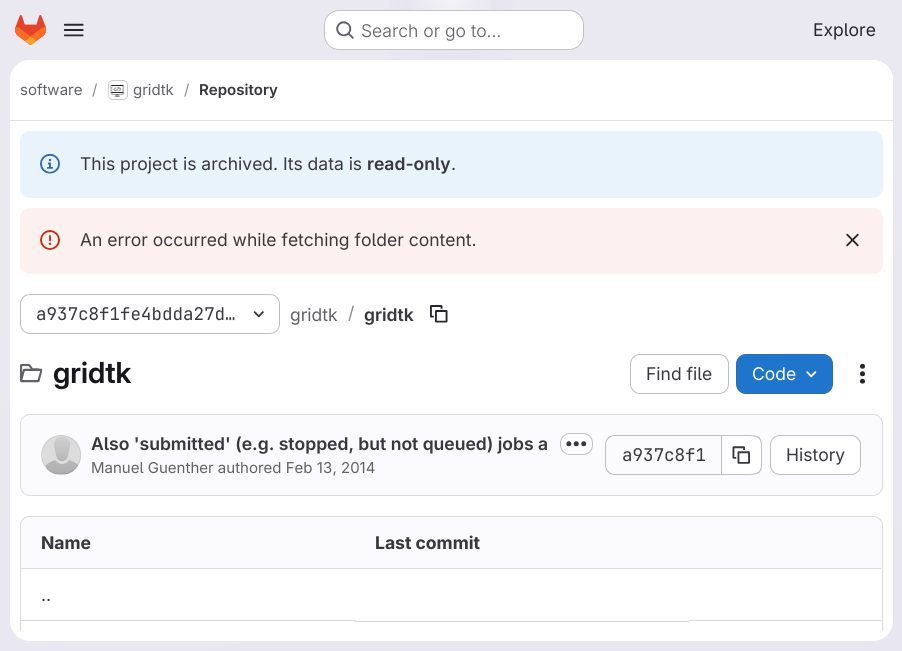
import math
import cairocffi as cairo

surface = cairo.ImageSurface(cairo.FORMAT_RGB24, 902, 651)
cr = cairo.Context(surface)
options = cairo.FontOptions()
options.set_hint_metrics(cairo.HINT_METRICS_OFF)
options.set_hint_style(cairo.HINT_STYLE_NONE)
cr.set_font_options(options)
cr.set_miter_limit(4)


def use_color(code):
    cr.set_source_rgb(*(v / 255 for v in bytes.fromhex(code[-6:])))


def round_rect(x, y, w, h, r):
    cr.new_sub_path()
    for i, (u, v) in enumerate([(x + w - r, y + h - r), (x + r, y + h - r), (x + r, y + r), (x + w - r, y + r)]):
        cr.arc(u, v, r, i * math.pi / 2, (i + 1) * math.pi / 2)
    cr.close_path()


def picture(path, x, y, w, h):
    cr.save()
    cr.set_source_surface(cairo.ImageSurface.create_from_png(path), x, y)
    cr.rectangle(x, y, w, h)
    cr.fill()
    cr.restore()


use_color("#ffffff")
cr.paint()
gradient = cairo.LinearGradient(521, 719, 382, -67)
gradient.add_color_stop_rgba(0, 0.91, 0.902, 0.941, 1)
gradient.add_color_stop_rgba(0.7, 0.918, 0.914, 0.949, 1)
cr.set_source(gradient)
cr.rectangle(0, 0, 902, 651)
cr.fill()
gradient = cairo.RadialGradient(0, 0, 0, 0, 0, 1)
gradient.set_matrix(cairo.Matrix(1 / 451, 0, 0, 1 / 651, -1 * 451 / 451, -1 * 0 / 651))
gradient.add_color_stop_rgba(0, 0.894, 0.886, 0.929, 1)
gradient.add_color_stop_rgba(0.19, 0.894, 0.886, 0.929, 0)
cr.set_source(gradient)
cr.rectangle(389, 0, 124, 60)
cr.fill()
gradient = cairo.RadialGradient(0, 0, 0, 0, 0, 1)
gradient.set_matrix(cairo.Matrix(1 / 451, 0, 0, 1 / 651, -1 * 451 / 451, -1 * 0 / 651))
gradient.add_color_stop_rgba(0, 0.894, 0.886, 0.925, 1)
gradient.add_color_stop_rgba(0.14, 0.894, 0.886, 0.925, 0)
cr.set_source(gradient)
cr.rectangle(424, 1, 54, 37)
cr.fill()
gradient = cairo.RadialGradient(451, 0, 0, 451, 0, 792)
gradient.add_color_stop_rgba(0, 1, 1, 1, 0.6)
gradient.add_color_stop_rgba(0.06, 1, 1, 1, 0)
cr.set_source(gradient)
cr.rectangle(411, 0, 80, 10)
cr.fill()
picture("img1.png", 15, 15, 31, 30)
picture("img2.png", 63, 23, 21, 14)
use_color("#ffffff")
round_rect(324, 10, 260, 40, 15)
cr.fill()
round_rect(324.5, 10.5, 259, 39, 14.5)
cr.set_source_rgba(0.02, 0.02, 0.024, 0.24)
cr.set_line_width(1)
cr.stroke()
picture("img3.png", 336, 21, 18, 18)
cr.select_font_face("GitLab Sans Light")
cr.set_font_size(17.5)
use_color("#626168")
cr.move_to(361, 37)
cr.show_text("Search or go to…")
cr.select_font_face("GitLab Sans")
use_color("#28272d")
cr.move_to(813, 36)
cr.show_text("Explore")
use_color("#ffffff")
round_rect(10, 60, 883, 581, 20)
cr.fill()
cr.new_path()
cr.move_to(30, 60)
cr.line_to(873, 60)
cr.curve_to(884, 60, 893, 69, 893, 80)
cr.line_to(893, 121)
cr.line_to(10, 121)
cr.line_to(10, 80)
cr.curve_to(10, 69, 19, 60, 30, 60)
cr.close_path()
cr.fill()
use_color("#e1dfec")
cr.rectangle(10, 120, 883, 1)
cr.fill()
cr.set_font_size(15)
use_color("#626168")
cr.move_to(20, 95)
cr.show_text("software")
use_color("#89888d")
cr.move_to(92, 95)
cr.show_text("/")
round_rect(108.5, 80.5, 19, 19, 4.5)
use_color("#dcdcde")
cr.stroke()
picture("img4.png", 108, 82, 17, 17)
round_rect(108.5, 80.5, 19, 19, 4.5)
cr.set_source_rgba(0.02, 0.02, 0.024, 0.08)
cr.stroke()
use_color("#626168")
cr.move_to(133, 95)
cr.show_text("gridtk")
use_color("#89888d")
cr.move_to(184, 95)
cr.show_text("/")
cr.select_font_face("GitLab Sans SemiBold")
use_color("#3a383f")
cr.move_to(199, 95)
cr.show_text("Repository")
use_color("#e9f3fc")
round_rect(20, 131, 863, 67, 10)
cr.fill()
picture("img5.png", 40, 153, 20, 21)
cr.select_font_face("GitLab Sans")
cr.set_font_size(17.5)
use_color("#3a383f")
cr.move_to(80, 170)
cr.show_text("This project is archived. Its data is")
cr.select_font_face("GitLab Sans SemiBold")
cr.move_to(367, 170)
cr.show_text("read-only")
cr.select_font_face("GitLab Sans")
cr.move_to(451, 170)
cr.show_text(".")
use_color("#fcf1ef")
round_rect(20, 208, 863, 66, 10)
cr.fill()
picture("img6.png", 40, 230, 20, 20)
use_color("#3a383f")
cr.move_to(80, 246)
cr.show_text("An error occurred while fetching folder content.")
picture("img7.png", 846, 233, 13, 14)
round_rect(20.5, 294.5, 259, 39, 9.5)
use_color("#bfbfc3")
cr.stroke()
cr.select_font_face("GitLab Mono")
use_color("#3a383f")
cr.move_to(36, 320)
cr.show_text("a937c8f1fe4bdda27d…")
picture("img8.png", 253, 311, 11, 7)
cr.select_font_face("GitLab Sans")
use_color("#626168")
cr.move_to(290, 321)
cr.show_text("gridtk")
use_color("#89888d")
cr.move_to(348, 319)
cr.show_text("/")
cr.select_font_face("GitLab Sans SemiBold")
use_color("#3a383f")
cr.move_to(364, 321)
cr.show_text("gridtk")
picture("img9.png", 430, 305, 18, 18)
picture("img10.png", 20, 364, 23, 19)
cr.select_font_face("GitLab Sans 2 SemiBold")
cr.set_font_size(29)
use_color("#18171d")
cr.move_to(53, 383)
cr.show_text("gridtk")
round_rect(630.5, 354.5, 98, 39, 9.5)
use_color("#bfbfc3")
cr.stroke()
cr.select_font_face("GitLab Sans")
cr.set_font_size(17.5)
use_color("#3a383f")
cr.move_to(646, 380)
cr.show_text("Find file")
use_color("#1f75cb")
round_rect(736.5, 354.5, 96, 39, 9.5)
cr.fill_preserve()
use_color("#2f68b4")
cr.stroke()
use_color("#ffffff")
cr.move_to(752, 380)
cr.show_text("Code")
picture("img11.png", 806, 371, 11, 7)
picture("img12.png", 860, 363, 5, 21)
use_color("#fbfafd")
round_rect(20.5, 414.5, 862, 81, 9.5)
cr.fill_preserve()
use_color("#dcdcde")
cr.stroke()
picture("img13.png", 41, 435, 40, 40)
cr.arc(61, 455, 19.5, 0, 2 * math.pi)
cr.set_source_rgba(0.02, 0.02, 0.024, 0.08)
cr.stroke()
cr.select_font_face("GitLab Sans SemiBold")
use_color("#3a383f")
cr.move_to(91, 450)
cr.show_text("Also 'submitted' (e.g. stopped, but not queued) jobs a")
use_color("#ffffff")
round_rect(560.5, 433.5, 32, 21, 9.5)
cr.fill_preserve()
use_color("#bfbfc3")
cr.stroke()
picture("img14.png", 566, 441, 21, 6)
cr.select_font_face("GitLab Sans")
cr.set_font_size(15)
use_color("#626168")
cr.move_to(91, 473)
cr.show_text("Manuel Guenther authored Feb 13, 2014")
use_color("#bfbfc3")
cr.set_fill_rule(cairo.FILL_RULE_EVEN_ODD)
cr.new_path()
cr.move_to(615, 435)
cr.line_to(721, 435)
cr.line_to(721, 475)
cr.line_to(615, 475)
cr.curve_to(609, 475, 605, 471, 605, 465)
cr.line_to(605, 445)
cr.curve_to(605, 439, 609, 435, 615, 435)
cr.close_path()
cr.move_to(615, 436)
cr.line_to(721, 436)
cr.line_to(721, 474)
cr.line_to(615, 474)
cr.curve_to(610, 474, 606, 470, 606, 465)
cr.line_to(606, 445)
cr.curve_to(606, 440, 610, 436, 615, 436)
cr.close_path()
cr.fill()
cr.select_font_face("GitLab Mono")
cr.set_font_size(17.5)
use_color("#3a383f")
cr.move_to(622, 461)
cr.show_text("a937c8f1")
use_color("#ffffff")
cr.new_path()
cr.move_to(723, 436)
cr.line_to(752, 436)
cr.curve_to(757, 436, 761, 440, 761, 445)
cr.line_to(761, 465)
cr.curve_to(761, 470, 757, 474, 752, 474)
cr.line_to(723, 474)
cr.close_path()
cr.fill()
use_color("#bfbfc3")
cr.new_path()
cr.move_to(722, 435)
cr.line_to(748, 435)
cr.curve_to(764, 435, 762, 441, 762, 455)
cr.curve_to(762, 469, 764, 475, 748, 475)
cr.line_to(722, 475)
cr.close_path()
cr.move_to(722, 436)
cr.line_to(748, 436)
cr.curve_to(763, 436, 761, 442, 761, 455)
cr.curve_to(761, 468, 763, 474, 748, 474)
cr.line_to(722, 474)
cr.close_path()
cr.fill()
cr.rectangle(721, 435, 1, 40)
cr.fill()
picture("img15.png", 732, 446, 18, 18)
use_color("#ffffff")
round_rect(770.5, 435.5, 90, 39, 9.5)
cr.fill_preserve()
use_color("#bfbfc3")
cr.stroke()
cr.select_font_face("GitLab Sans")
use_color("#3a383f")
cr.move_to(786, 461)
cr.show_text("History")
cr.save()
cr.set_fill_rule(cairo.FILL_RULE_WINDING)
cr.rectangle(10, 121, 883, 510)
cr.clip()
use_color("#dcdcde")
cr.new_path()
cr.move_to(30, 516)
cr.curve_to(24, 516, 20, 520, 20, 526)
cr.line_to(20, 638)
cr.line_to(21, 639)
cr.line_to(21, 526)
cr.curve_to(21, 521, 25, 517, 30, 517)
cr.line_to(873, 517)
cr.curve_to(878, 517, 882, 521, 882, 526)
cr.line_to(882, 639)
cr.line_to(883, 638)
cr.line_to(883, 526)
cr.curve_to(883, 520, 879, 516, 873, 516)
cr.close_path()
cr.fill()
cr.restore()
use_color("#fbfafd")
cr.new_path()
cr.move_to(30, 518)
cr.line_to(355, 518)
cr.line_to(355, 569)
cr.line_to(21, 569)
cr.line_to(21, 527)
cr.curve_to(21, 522, 25, 518, 30, 518)
cr.close_path()
cr.fill()
cr.select_font_face("GitLab Sans", cairo.FONT_SLANT_NORMAL, cairo.FONT_WEIGHT_BOLD)
use_color("#3a383f")
cr.move_to(41, 549)
cr.show_text("Name")
use_color("#fbfafd")
cr.rectangle(355, 518, 334, 50)
cr.fill()
use_color("#3a383f")
cr.move_to(375, 549)
cr.show_text("Last commit")
use_color("#fbfafd")
cr.new_path()
cr.move_to(689, 518)
cr.line_to(872, 518)
cr.curve_to(877, 518, 881, 522, 881, 527)
cr.line_to(881, 569)
cr.line_to(689, 569)
cr.close_path()
cr.fill()
use_color("#dcdcde")
cr.rectangle(21, 568, 860, 1)
cr.fill()
cr.select_font_face("GitLab Sans")
use_color("#3a383f")
cr.move_to(41, 601)
cr.show_text("..")
use_color("#dcdcde")
cr.rectangle(21, 620, 335, 1)
cr.fill()
cr.rectangle(689, 620, 192, 1)
cr.fill()
cr.rectangle(355, 621, 334, 1)
cr.fill()
surface.write_to_png("result.png")
